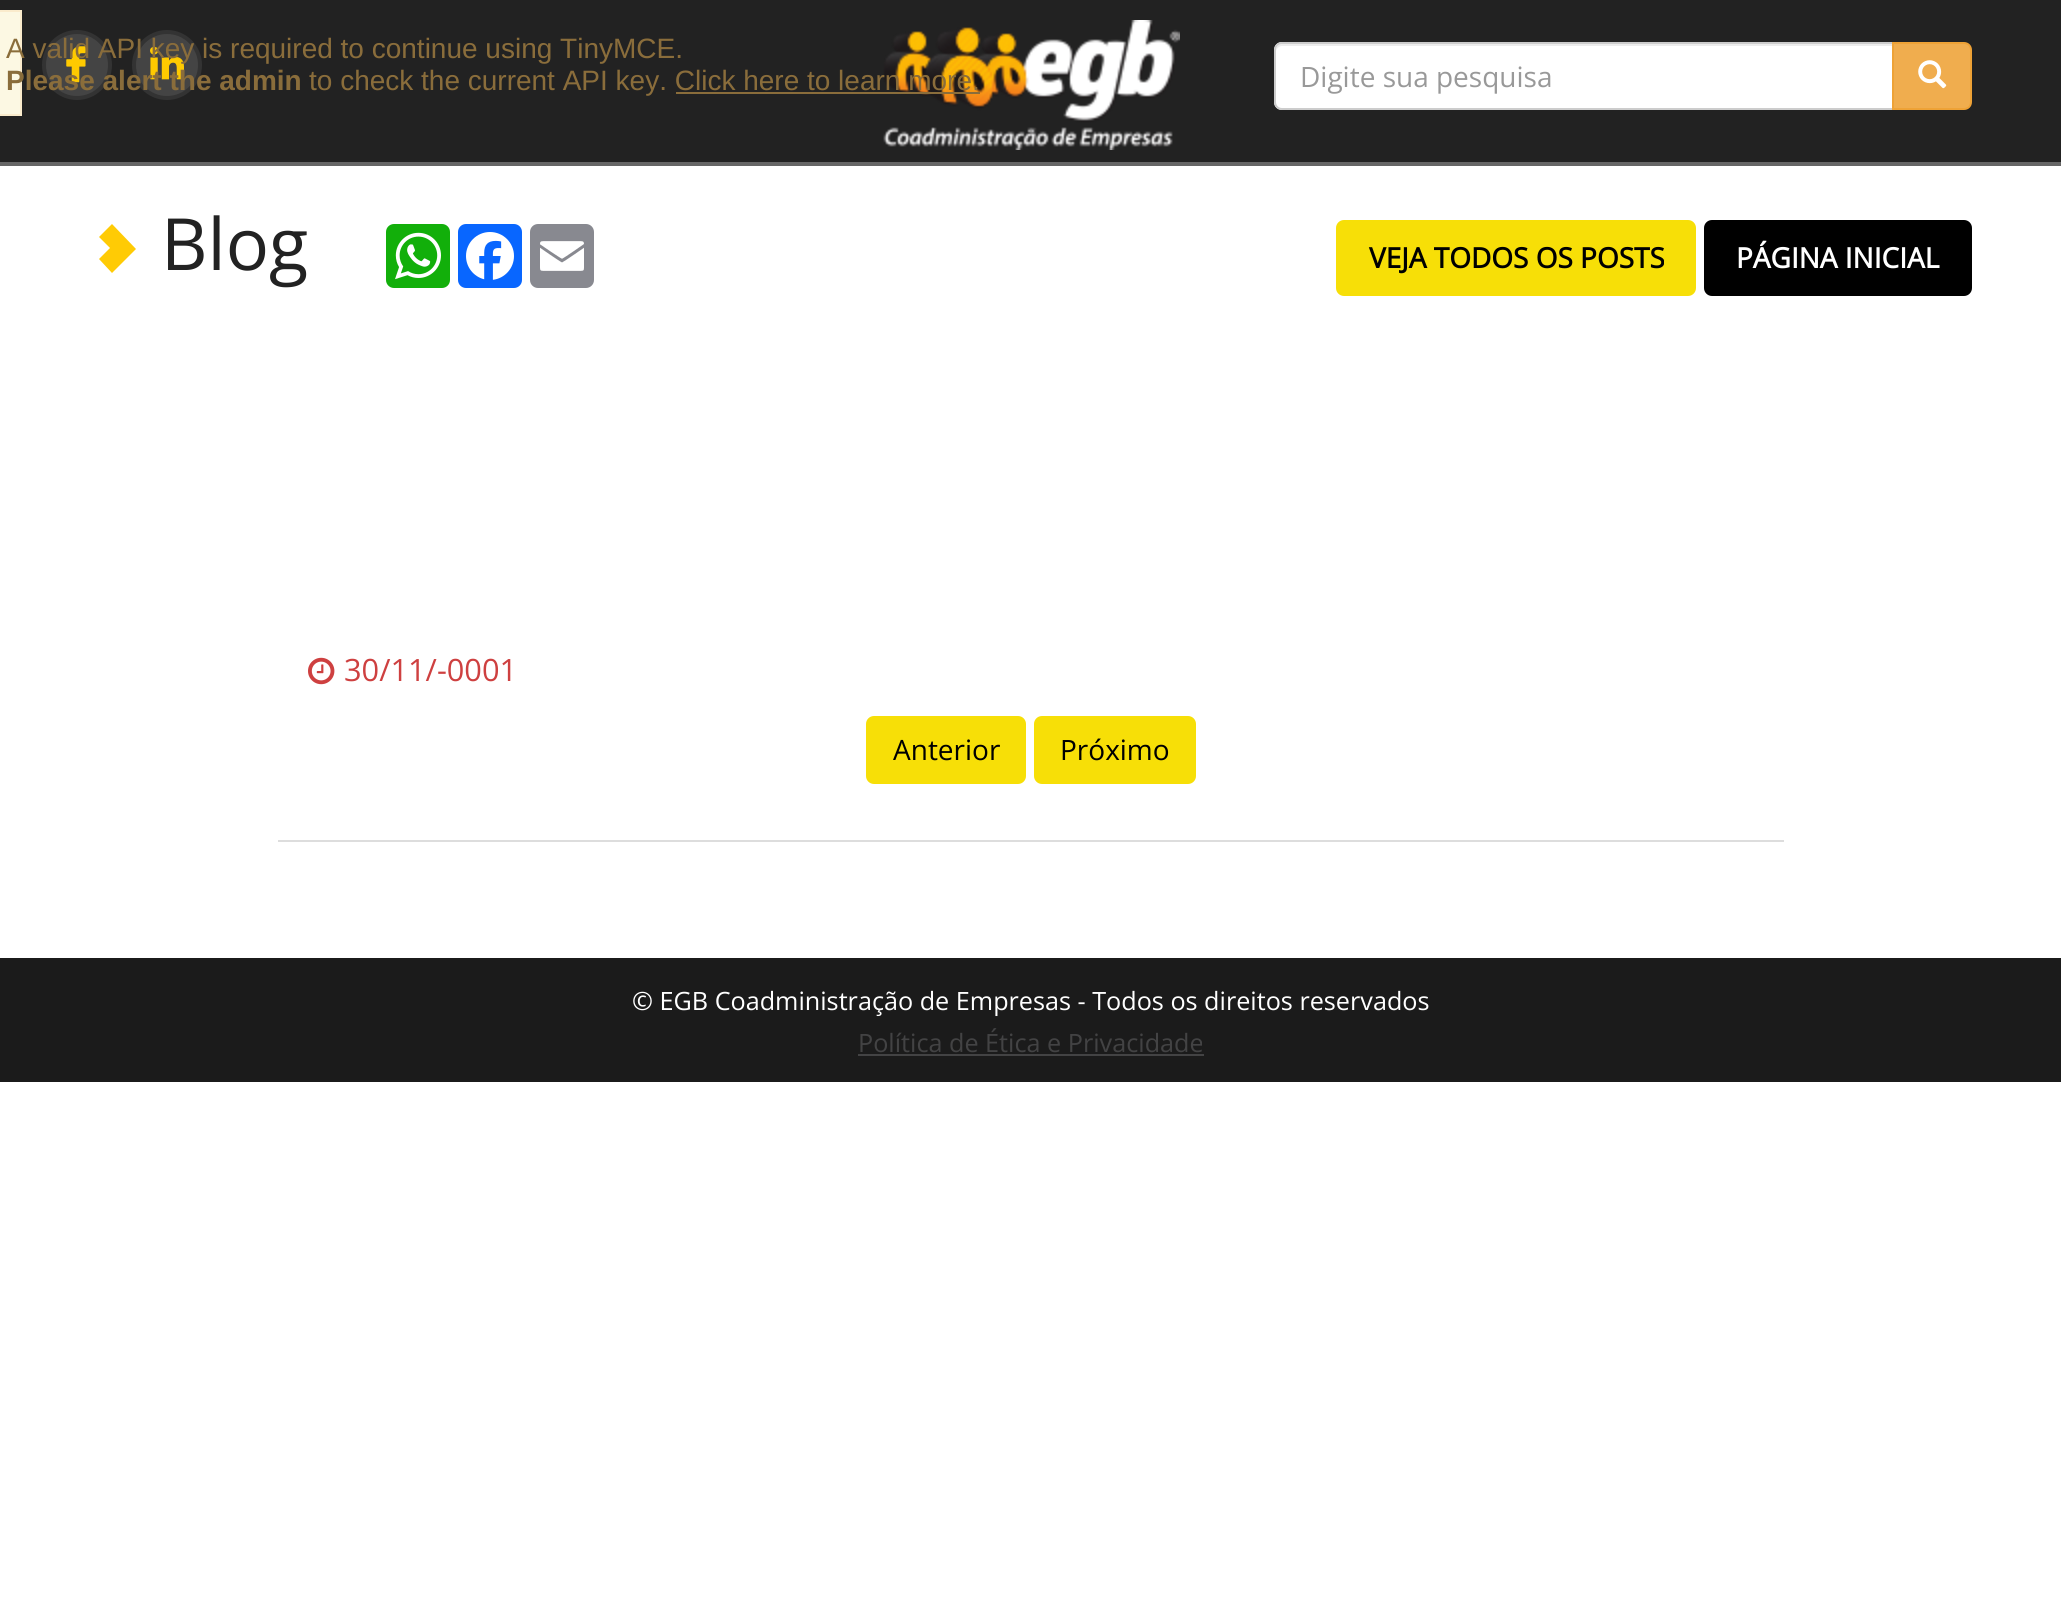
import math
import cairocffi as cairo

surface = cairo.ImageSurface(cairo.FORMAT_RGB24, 2061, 1613)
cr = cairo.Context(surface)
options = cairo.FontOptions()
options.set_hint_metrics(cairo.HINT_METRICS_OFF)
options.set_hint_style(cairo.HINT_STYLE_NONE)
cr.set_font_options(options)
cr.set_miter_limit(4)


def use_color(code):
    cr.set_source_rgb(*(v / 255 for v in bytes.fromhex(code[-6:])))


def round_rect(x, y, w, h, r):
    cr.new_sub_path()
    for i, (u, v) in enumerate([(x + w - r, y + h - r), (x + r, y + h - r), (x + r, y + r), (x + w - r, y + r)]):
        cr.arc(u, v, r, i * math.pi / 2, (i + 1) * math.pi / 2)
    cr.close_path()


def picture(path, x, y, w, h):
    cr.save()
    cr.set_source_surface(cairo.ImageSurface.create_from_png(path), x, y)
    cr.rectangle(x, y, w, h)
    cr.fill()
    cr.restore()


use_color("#ffffff")
cr.paint()
use_color("#222222")
cr.rectangle(0, 0, 2061, 162)
cr.fill()
use_color("#fcf8e3")
cr.rectangle(-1, 11, 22, 104)
cr.fill_preserve()
use_color("#faebcc")
cr.stroke()
use_color("#444444")
cr.arc(77, 65, 33, 0, 2 * math.pi)
cr.fill_preserve()
use_color("#333333")
cr.set_line_width(4)
cr.stroke()
picture("img1.png", 66, 46, 20, 37)
use_color("#444444")
cr.arc(167, 65, 33, 0, 2 * math.pi)
cr.fill_preserve()
use_color("#333333")
cr.stroke()
picture("img2.png", 150, 46, 34, 34)
cr.select_font_face("Liberation Sans")
cr.set_font_size(28)
use_color("#8a6d3b")
cr.move_to(6, 58)
cr.show_text("A valid API key is required to continue using TinyMCE.")
cr.select_font_face("Liberation Sans", cairo.FONT_SLANT_NORMAL, cairo.FONT_WEIGHT_BOLD)
cr.move_to(6, 90)
cr.show_text("Please alert the admin")
picture("img3.png", 883, 20, 297, 130)
cr.select_font_face("Liberation Sans")
cr.move_to(309, 90)
cr.show_text("to check the current API key. Click here to learn more.")
cr.rectangle(676, 92, 304, 2)
cr.fill()
use_color("#666666")
cr.rectangle(0, 162, 2061, 4)
cr.fill()
use_color("#ffffff")
cr.new_path()
cr.move_to(1282, 42)
cr.line_to(1894, 42)
cr.line_to(1894, 110)
cr.line_to(1282, 110)
cr.curve_to(1277.5, 110, 1274, 106.5, 1274, 102)
cr.line_to(1274, 50)
cr.curve_to(1274, 45.5, 1277.5, 42, 1282, 42)
cr.close_path()
cr.fill()
use_color("#ececec")
cr.new_path()
cr.move_to(1282, 46)
cr.line_to(1892, 46)
cr.line_to(1892, 44)
cr.line_to(1282, 44)
cr.curve_to(1277, 44, 1276, 48, 1276, 52)
cr.curve_to(1276, 49, 1279, 46, 1282, 46)
cr.close_path()
cr.fill()
cr.new_path()
cr.move_to(1282, 43)
cr.line_to(1893, 43)
cr.line_to(1893, 109)
cr.line_to(1282, 109)
cr.curve_to(1278, 109, 1275, 106, 1275, 102)
cr.line_to(1275, 50)
cr.curve_to(1275, 46, 1278, 43, 1282, 43)
cr.close_path()
use_color("#cccccc")
cr.set_line_width(2)
cr.stroke()
cr.select_font_face("Open Sans")
use_color("#999999")
cr.move_to(1300, 87)
cr.show_text("Digite sua pesquisa")
use_color("#f0ad4e")
cr.new_path()
cr.move_to(1893, 43)
cr.line_to(1964, 43)
cr.curve_to(1968, 43, 1971, 46, 1971, 50)
cr.line_to(1971, 102)
cr.curve_to(1971, 106, 1968, 109, 1964, 109)
cr.line_to(1893, 109)
cr.close_path()
cr.fill_preserve()
use_color("#eea236")
cr.stroke()
picture("img4.png", 1918, 60, 29, 29)
use_color("#ffcb05")
cr.new_path()
cr.move_to(99, 237)
cr.line_to(110, 248)
cr.line_to(99, 259)
cr.line_to(112, 273)
cr.line_to(136, 249)
cr.line_to(112, 224)
cr.close_path()
cr.fill()
cr.set_font_size(72)
use_color("#222222")
cr.move_to(161, 270)
cr.show_text("Blog")
use_color("#12af0a")
round_rect(386, 224, 64, 64, 8)
cr.fill()
picture("img5.png", 395, 232, 46, 48)
use_color("#0866ff")
round_rect(458, 224, 64, 64, 8)
cr.fill()
picture("img6.png", 466, 232, 48, 48)
use_color("#888990")
round_rect(530, 224, 64, 64, 8)
cr.fill()
picture("img7.png", 540, 241, 44, 30)
use_color("#f7df07")
round_rect(1336, 220, 360, 76, 8)
cr.fill()
cr.select_font_face("Open Sans", cairo.FONT_SLANT_NORMAL, cairo.FONT_WEIGHT_BOLD)
cr.set_font_size(28)
use_color("#000000")
cr.move_to(1369, 268)
cr.show_text("VEJA TODOS OS POSTS")
round_rect(1704, 220, 268, 76, 8)
cr.fill()
use_color("#ffffff")
cr.move_to(1736, 268)
cr.show_text("PÁGINA INICIAL")
use_color("#dddddd")
cr.rectangle(278, 840, 1506, 2)
cr.fill()
picture("img8.png", 308, 657, 27, 28)
cr.select_font_face("Open Sans")
cr.set_font_size(30.75)
use_color("#ce4040")
cr.move_to(344, 681)
cr.show_text("30/11/-0001")
use_color("#f7df07")
round_rect(866, 716, 160, 68, 8)
cr.fill()
cr.set_font_size(28)
use_color("#000000")
cr.move_to(893, 760)
cr.show_text("Anterior")
use_color("#f7df07")
round_rect(1034, 716, 162, 68, 8)
cr.fill()
use_color("#000000")
cr.move_to(1060, 760)
cr.show_text("Próximo")
use_color("#1b1b1b")
cr.rectangle(0, 958, 2061, 124)
cr.fill()
cr.set_font_size(25.2)
use_color("#ffffff")
cr.move_to(632, 1010)
cr.show_text("© EGB Coadministração de Empresas - Todos os direitos reservados")
use_color("#434344")
cr.move_to(858, 1052)
cr.show_text("Política de Ética e Privacidade")
cr.rectangle(858, 1054, 346, 2)
cr.fill()
surface.write_to_png("result.png")
